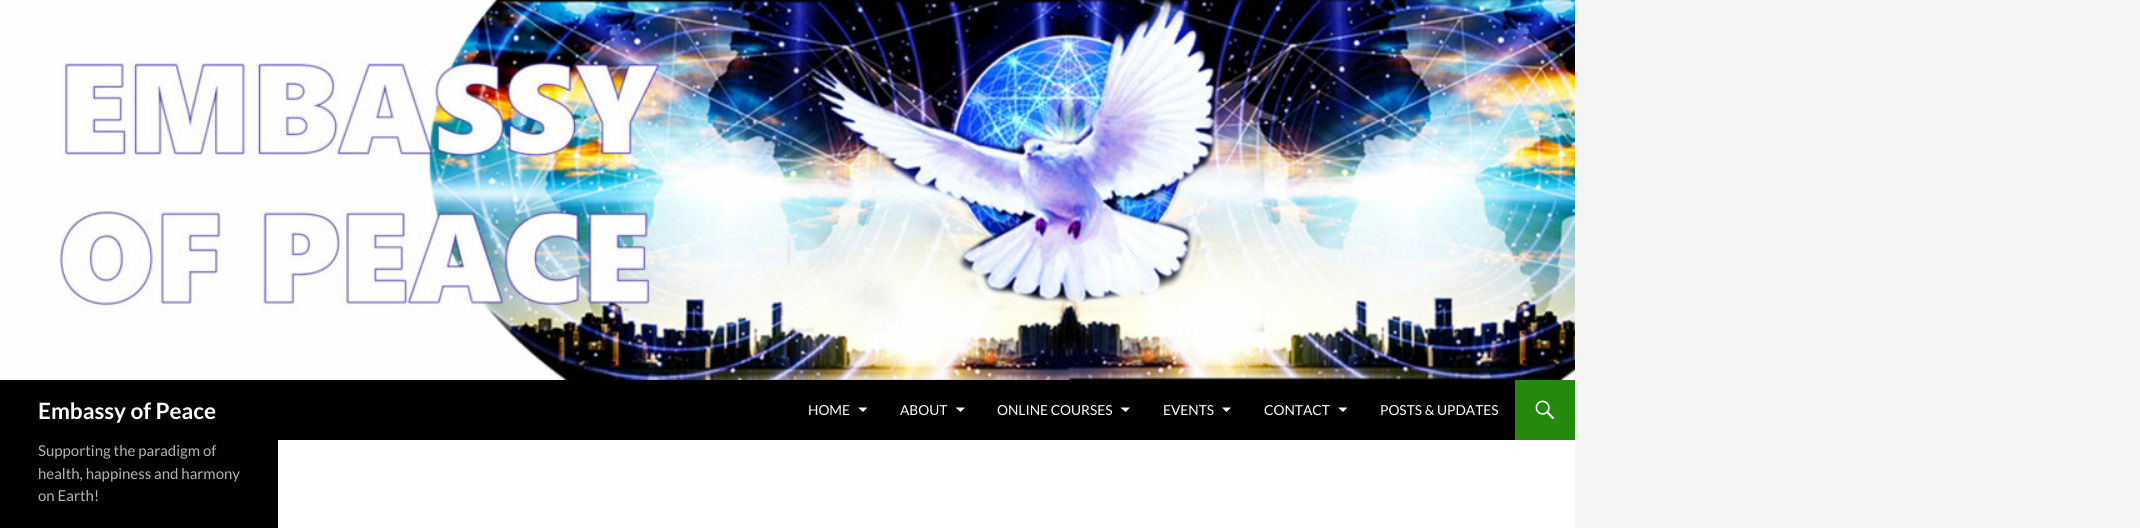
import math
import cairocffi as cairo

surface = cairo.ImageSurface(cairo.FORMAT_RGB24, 2140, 528)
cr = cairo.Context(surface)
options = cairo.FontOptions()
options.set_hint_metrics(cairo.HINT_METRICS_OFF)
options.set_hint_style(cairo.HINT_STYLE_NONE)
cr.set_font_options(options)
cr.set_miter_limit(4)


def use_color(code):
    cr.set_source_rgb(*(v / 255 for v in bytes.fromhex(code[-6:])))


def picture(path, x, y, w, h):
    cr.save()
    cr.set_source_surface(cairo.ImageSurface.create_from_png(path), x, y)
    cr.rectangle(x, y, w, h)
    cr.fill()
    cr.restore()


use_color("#f5f5f5")
cr.paint()
use_color("#ffffff")
cr.rectangle(278, 440, 1297, 88)
cr.fill()
picture("img1.png", 0, 0, 1575, 380)
use_color("#000000")
cr.rectangle(0, 380, 1515, 60)
cr.fill()
cr.select_font_face("Lato", cairo.FONT_SLANT_NORMAL, cairo.FONT_WEIGHT_BOLD)
cr.set_font_size(22.5)
use_color("#ffffff")
cr.move_to(38, 419)
cr.show_text("Embassy of Peace")
cr.select_font_face("Lato")
cr.set_font_size(13.75)
cr.move_to(808, 415)
cr.show_text("HOME")
cr.new_path()
cr.move_to(858, 407.5)
cr.line_to(863, 412)
cr.line_to(867.5, 407.5)
cr.close_path()
cr.fill()
cr.move_to(900, 415)
cr.show_text("ABOUT")
cr.new_path()
cr.move_to(955.5, 407.5)
cr.line_to(960.5, 412)
cr.line_to(965, 407.5)
cr.close_path()
cr.fill()
cr.move_to(997, 415)
cr.show_text("ONLINE COURSES")
cr.new_path()
cr.move_to(1120.5, 407.5)
cr.line_to(1125.5, 412)
cr.line_to(1130, 407.5)
cr.close_path()
cr.fill()
cr.move_to(1163, 415)
cr.show_text("EVENTS")
cr.new_path()
cr.move_to(1222, 407.5)
cr.line_to(1226.5, 412)
cr.line_to(1231, 407.5)
cr.close_path()
cr.fill()
cr.move_to(1264, 415)
cr.show_text("CONTACT")
cr.new_path()
cr.move_to(1338, 407.5)
cr.line_to(1343, 412)
cr.line_to(1347.5, 407.5)
cr.close_path()
cr.fill()
cr.move_to(1380, 415)
cr.show_text("POSTS & UPDATES")
use_color("#24890d")
cr.rectangle(1515, 380, 60, 60)
cr.fill()
picture("img2.png", 1535, 400, 20, 20)
use_color("#000000")
cr.rectangle(0, 440, 278, 88)
cr.fill()
cr.set_font_size(15)
use_color("#b3b3b3")
cr.move_to(38, 456)
cr.show_text("Supporting the paradigm of")
cr.move_to(38, 479)
cr.show_text("health, happiness and harmony")
cr.move_to(38, 501)
cr.show_text("on Earth!")
surface.write_to_png("result.png")
